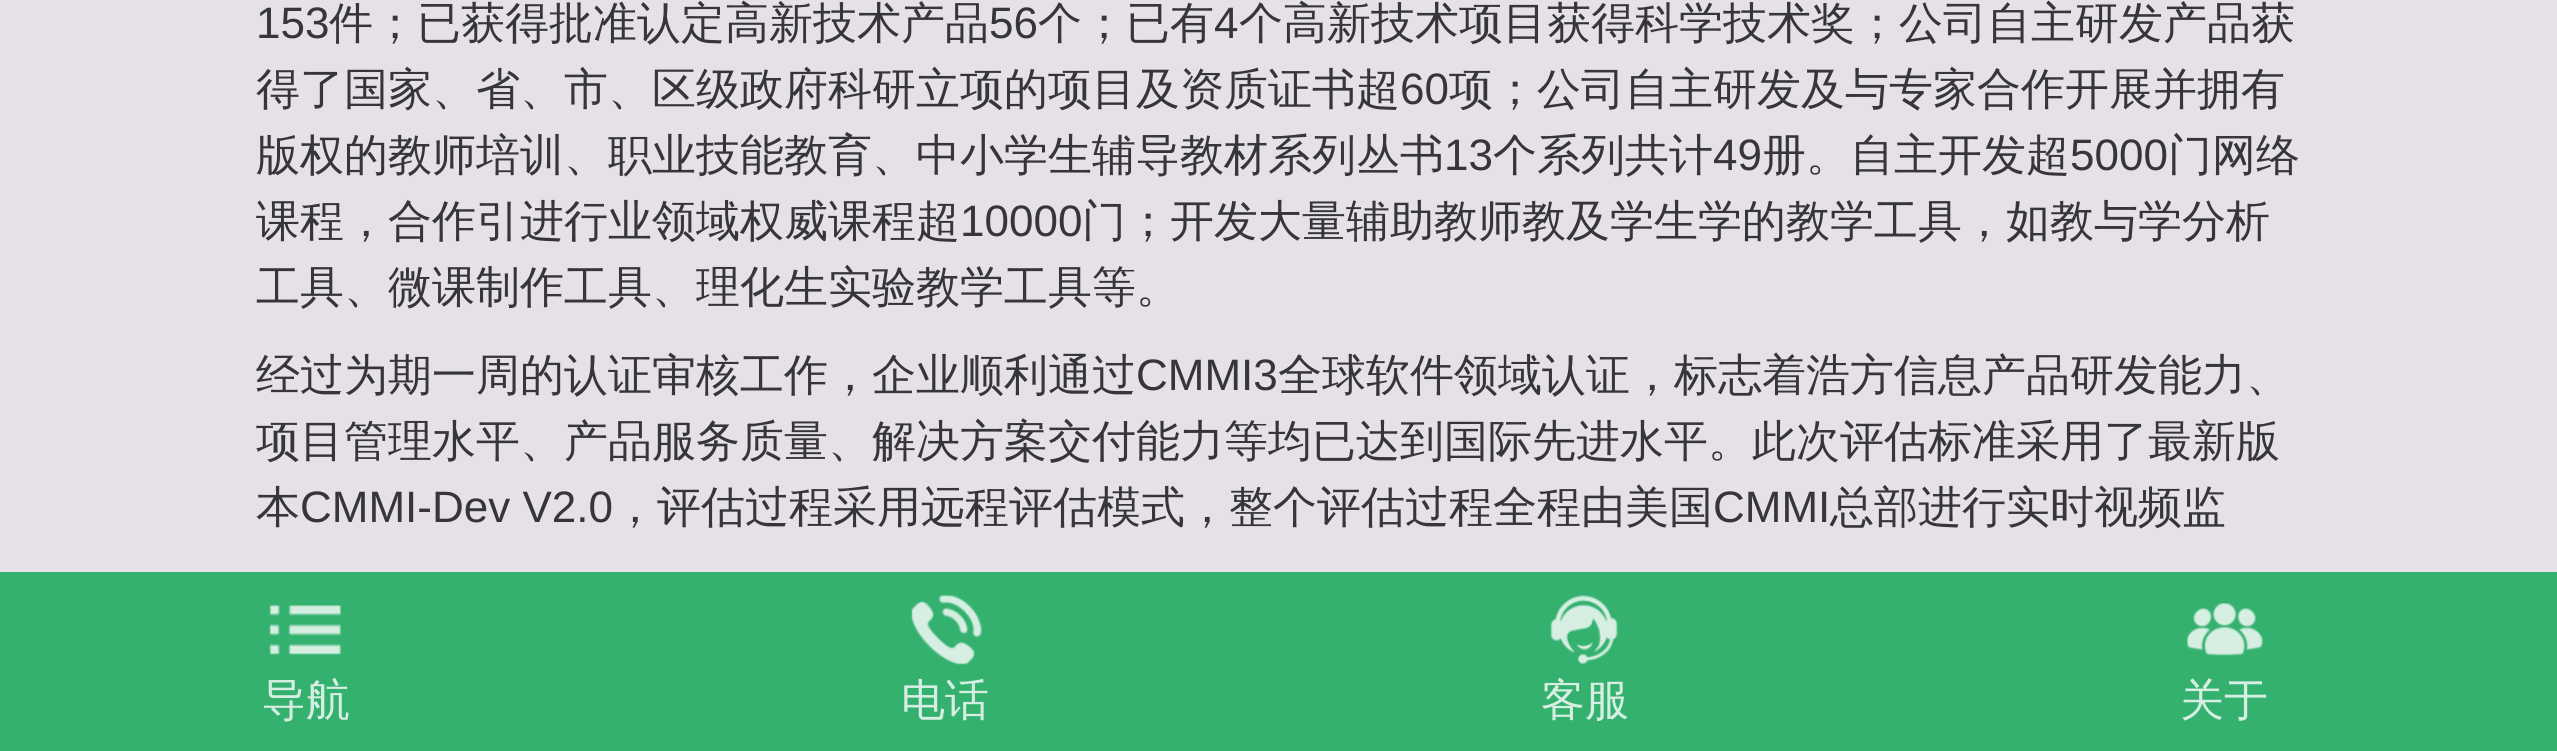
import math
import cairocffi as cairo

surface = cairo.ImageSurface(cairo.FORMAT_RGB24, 2557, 751)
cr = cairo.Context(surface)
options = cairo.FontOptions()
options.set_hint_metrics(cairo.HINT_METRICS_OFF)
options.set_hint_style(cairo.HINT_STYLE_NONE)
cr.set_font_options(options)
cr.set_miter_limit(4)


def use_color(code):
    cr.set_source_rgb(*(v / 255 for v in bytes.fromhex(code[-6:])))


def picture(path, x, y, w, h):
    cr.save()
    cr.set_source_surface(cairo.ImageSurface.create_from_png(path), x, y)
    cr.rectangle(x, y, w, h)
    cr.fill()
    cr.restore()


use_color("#e5e1e6")
cr.paint()
cr.select_font_face("Liberation Sans")
cr.set_font_size(44)
use_color("#363639")
cr.move_to(256, 38)
cr.show_text("153")
cr.select_font_face("WenQuanYi Zen Hei Medium")
cr.move_to(329, 38)
cr.show_text("件；已获得批准认定高新技术产品")
cr.select_font_face("Liberation Sans")
cr.move_to(989, 38)
cr.show_text("56")
cr.select_font_face("WenQuanYi Zen Hei Medium")
cr.move_to(1038, 38)
cr.show_text("个；已有")
cr.select_font_face("Liberation Sans")
cr.move_to(1214, 38)
cr.show_text("4")
cr.select_font_face("WenQuanYi Zen Hei Medium")
cr.move_to(1239, 38)
cr.show_text("个高新技术项目获得科学技术奖；公司自主研发产品获")
cr.move_to(256, 104)
cr.show_text("得了国家、省、市、区级政府科研立项的项目及资质证书超")
cr.select_font_face("Liberation Sans")
cr.move_to(1400, 104)
cr.show_text("60")
cr.select_font_face("WenQuanYi Zen Hei Medium")
cr.move_to(1449, 104)
cr.show_text("项；公司自主研发及与专家合作开展并拥有")
cr.move_to(256, 170)
cr.show_text("版权的教师培训、职业技能教育、中小学生辅导教材系列丛书")
cr.select_font_face("Liberation Sans")
cr.move_to(1444, 170)
cr.show_text("13")
cr.select_font_face("WenQuanYi Zen Hei Medium")
cr.move_to(1493, 170)
cr.show_text("个系列共计")
cr.select_font_face("Liberation Sans")
cr.move_to(1713, 170)
cr.show_text("49")
cr.select_font_face("WenQuanYi Zen Hei Medium")
cr.move_to(1762, 170)
cr.show_text("册。自主开发超")
cr.select_font_face("Liberation Sans")
cr.move_to(2070, 170)
cr.show_text("5000")
cr.select_font_face("WenQuanYi Zen Hei Medium")
cr.move_to(2168, 170)
cr.show_text("门网络")
cr.move_to(256, 236)
cr.show_text("课程，合作引进行业领域权威课程超")
cr.select_font_face("Liberation Sans")
cr.move_to(960, 236)
cr.show_text("10000")
cr.select_font_face("WenQuanYi Zen Hei Medium")
cr.move_to(1082, 236)
cr.show_text("门；开发大量辅助教师教及学生学的教学工具，如教与学分析")
cr.move_to(256, 302)
cr.show_text("工具、微课制作工具、理化生实验教学工具等。")
cr.move_to(256, 390)
cr.show_text("经过为期一周的认证审核工作，企业顺利通过")
cr.select_font_face("Liberation Sans")
cr.move_to(1136, 390)
cr.show_text("CMMI3")
cr.select_font_face("WenQuanYi Zen Hei Medium")
cr.move_to(1278, 390)
cr.show_text("全球软件领域认证，标志着浩方信息产品研发能力、")
cr.move_to(256, 456)
cr.show_text("项目管理水平、产品服务质量、解决方案交付能力等均已达到国际先进水平。此次评估标准采用了最新版")
cr.move_to(256, 522)
cr.show_text("本")
cr.select_font_face("Liberation Sans")
cr.move_to(300, 522)
cr.show_text("CMMI-Dev V2.0")
cr.select_font_face("WenQuanYi Zen Hei Medium")
cr.move_to(613, 522)
cr.show_text("，评估过程采用远程评估模式，整个评估过程全程由美国")
cr.select_font_face("Liberation Sans")
cr.move_to(1713, 522)
cr.show_text("CMMI")
cr.select_font_face("WenQuanYi Zen Hei Medium")
cr.move_to(1830, 522)
cr.show_text("总部进行实时视频监")
use_color("#34b16f")
cr.rectangle(0, 572, 2557, 179)
cr.fill()
picture("img1.png", 269, 605, 72, 50)
use_color("#d6efe2")
cr.move_to(262, 715)
cr.show_text("导航")
picture("img2.png", 911, 595, 71, 70)
cr.move_to(901, 715)
cr.show_text("电话")
picture("img3.png", 1550, 595, 68, 70)
cr.move_to(1541, 715)
cr.show_text("客服")
picture("img4.png", 2186, 603, 77, 53)
cr.move_to(2180, 715)
cr.show_text("关于")
surface.write_to_png("result.png")
